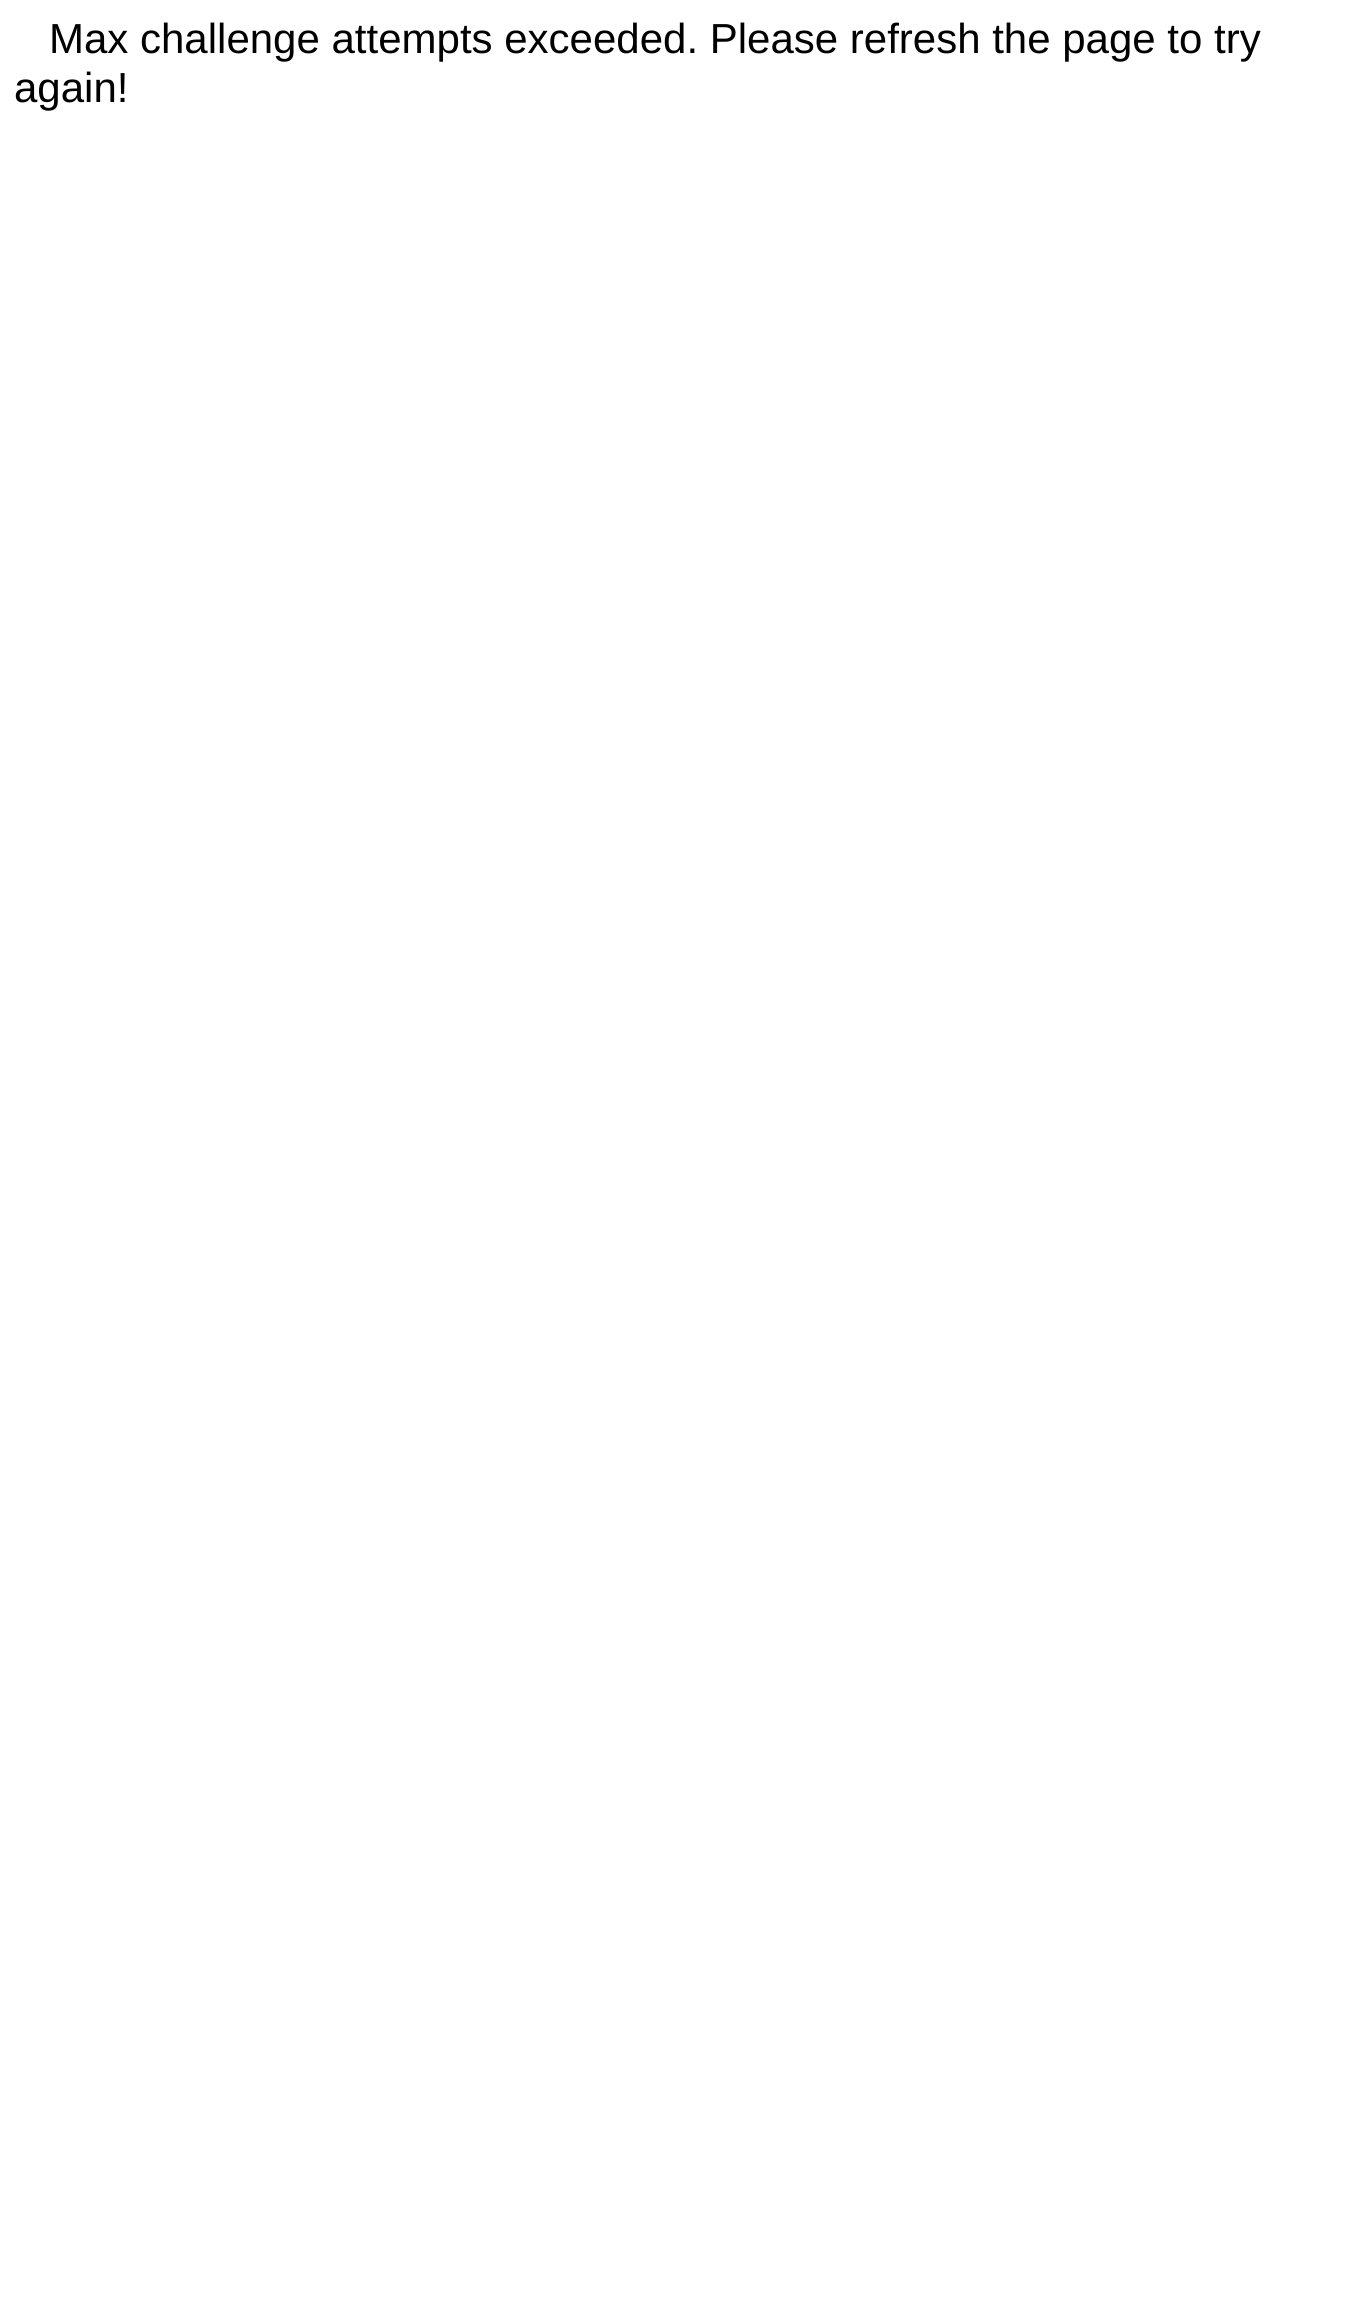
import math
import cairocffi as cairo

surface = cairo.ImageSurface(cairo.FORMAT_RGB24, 1364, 2316)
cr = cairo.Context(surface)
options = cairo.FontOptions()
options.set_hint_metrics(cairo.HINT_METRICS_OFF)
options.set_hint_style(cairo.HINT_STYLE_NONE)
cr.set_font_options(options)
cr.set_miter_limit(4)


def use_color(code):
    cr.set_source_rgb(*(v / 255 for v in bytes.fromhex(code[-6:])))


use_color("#ffffff")
cr.paint()
cr.select_font_face("Liberation Sans")
cr.set_font_size(42)
use_color("#000000")
cr.move_to(49, 53)
cr.show_text("Max challenge attempts exceeded. Please refresh the page to try")
cr.move_to(14, 102)
cr.show_text("again!")
surface.write_to_png("result.png")
